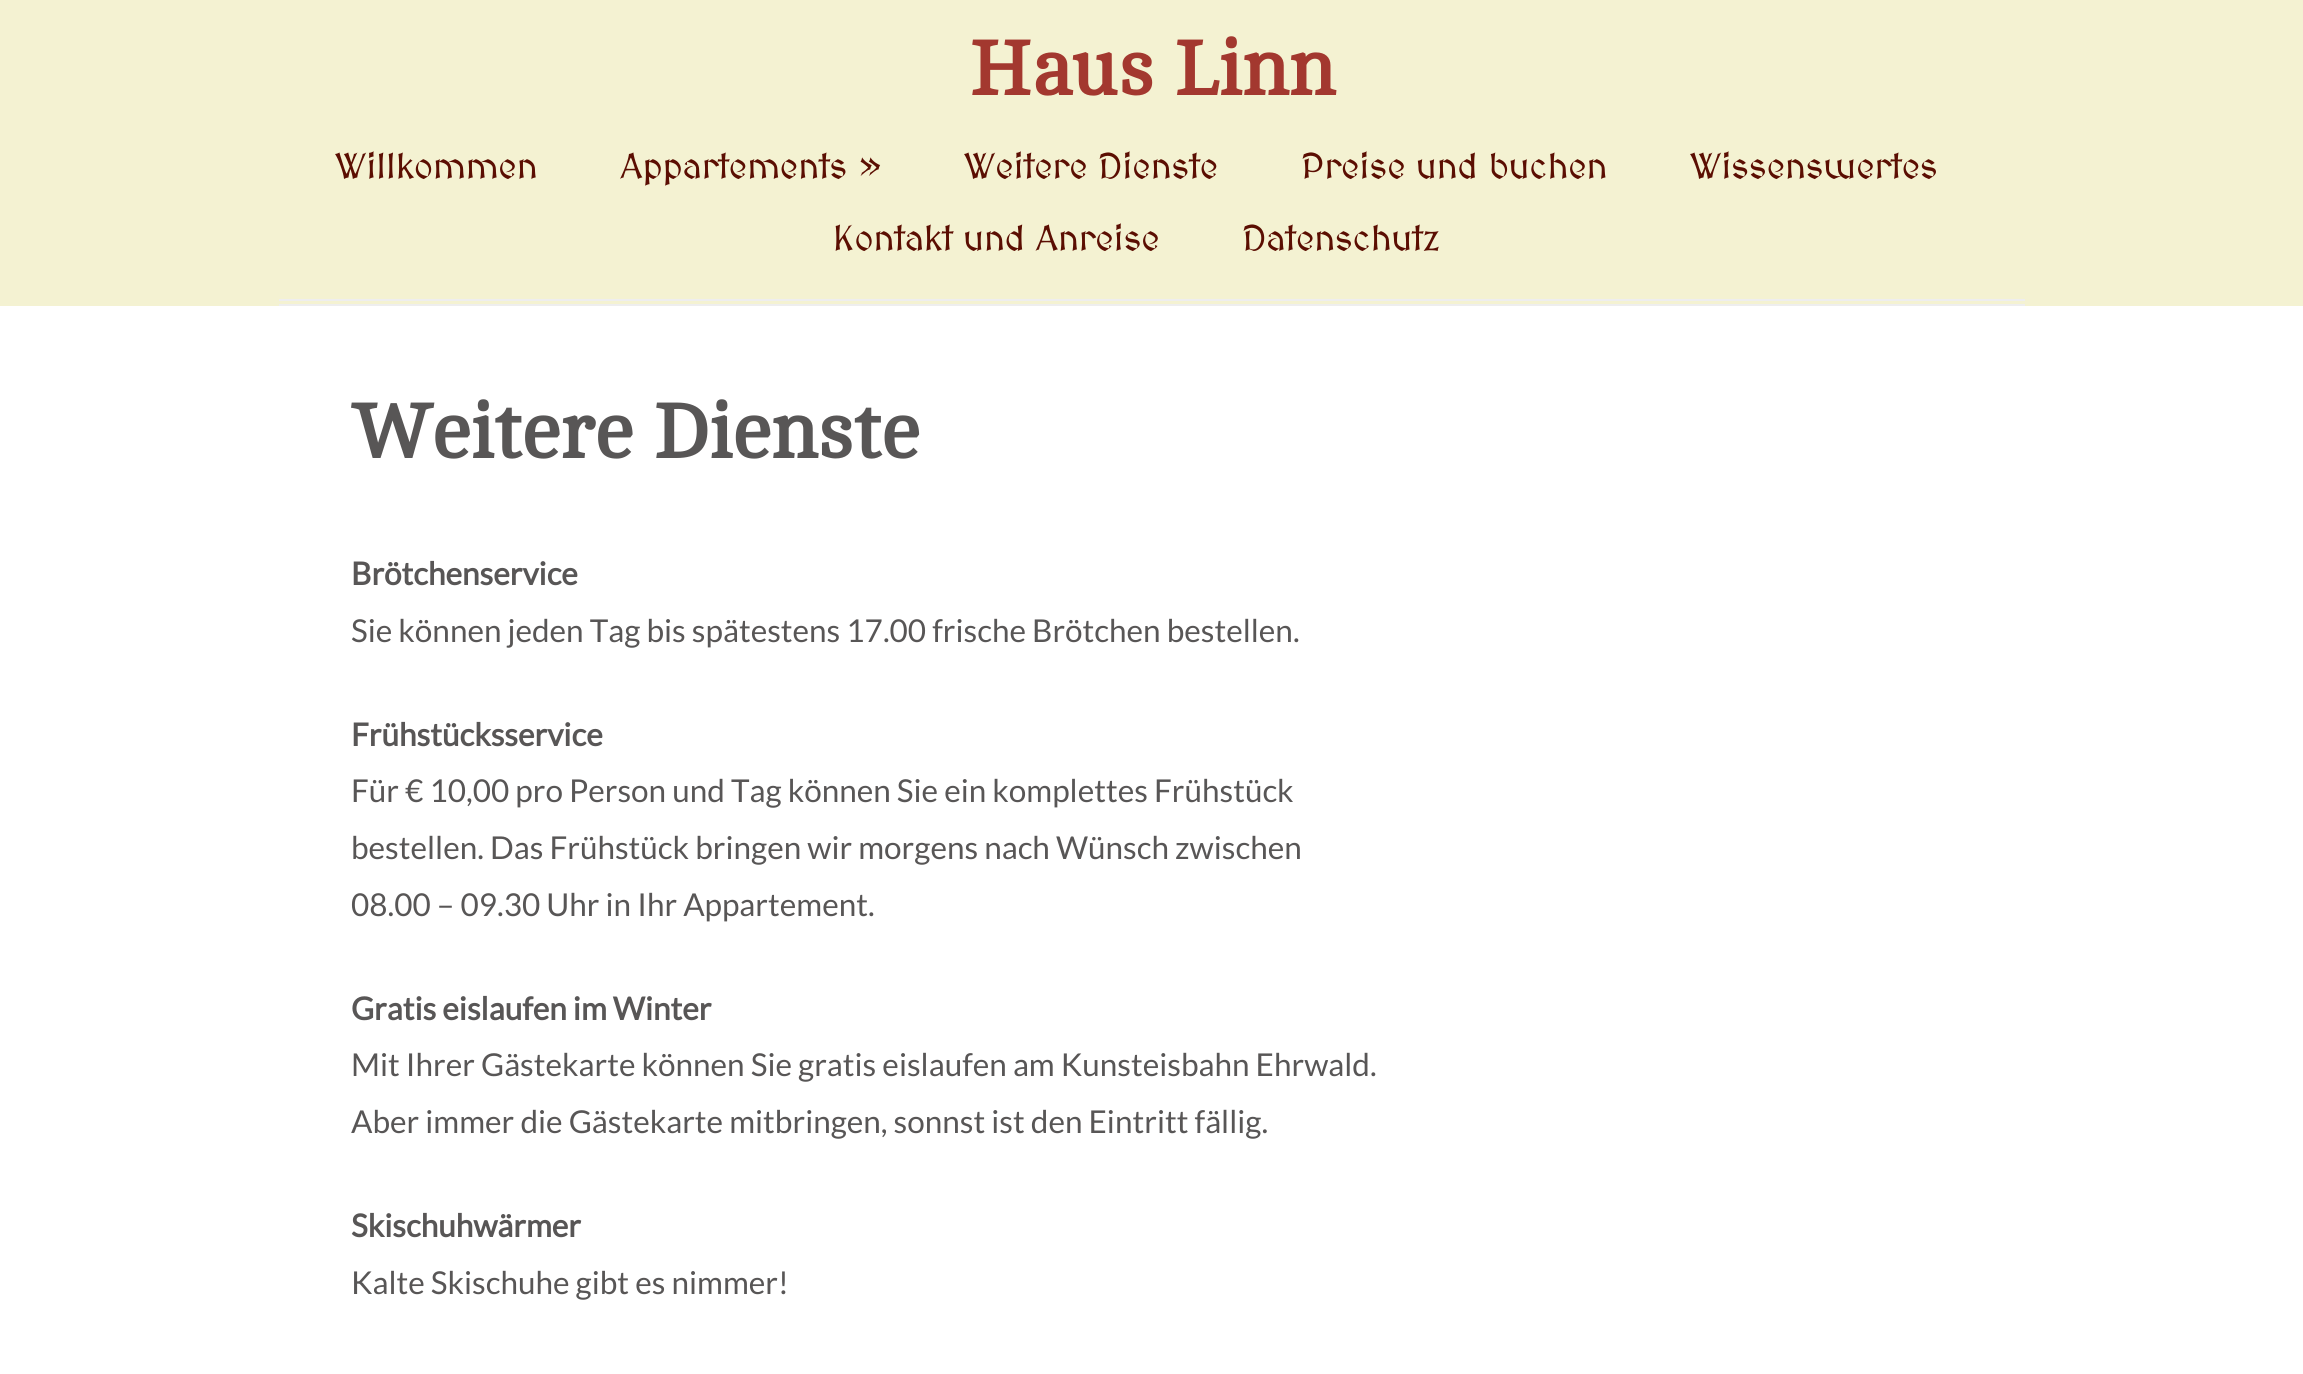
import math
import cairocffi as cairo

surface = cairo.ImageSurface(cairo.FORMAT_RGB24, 2303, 1374)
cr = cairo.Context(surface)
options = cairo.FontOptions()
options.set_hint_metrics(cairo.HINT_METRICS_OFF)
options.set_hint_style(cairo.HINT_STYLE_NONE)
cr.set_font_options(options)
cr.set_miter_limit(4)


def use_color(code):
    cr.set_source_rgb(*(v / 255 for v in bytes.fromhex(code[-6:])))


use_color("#f4f2d2")
cr.paint()
cr.select_font_face("Cambo", cairo.FONT_SLANT_NORMAL, cairo.FONT_WEIGHT_BOLD)
cr.set_font_size(78.75)
use_color("#a3382f")
cr.move_to(969, 95)
cr.show_text("Haus Linn")
cr.select_font_face("MedievalSharp Medium")
cr.set_font_size(36)
use_color("#5b0e02")
cr.move_to(335, 179)
cr.show_text("Willkommen")
cr.move_to(620, 179)
cr.show_text("Appartements »")
cr.move_to(964, 179)
cr.show_text("Weitere Dienste")
cr.move_to(1301, 179)
cr.show_text("Preise und buchen")
cr.move_to(1690, 179)
cr.show_text("Wissenswertes")
cr.move_to(833, 251)
cr.show_text("Kontakt und Anreise")
cr.move_to(1242, 251)
cr.show_text("Datenschutz")
use_color("#eeeeee")
cr.rectangle(279, 299, 1746, 2)
cr.fill()
cr.rectangle(279, 304, 1746, 2)
cr.fill()
use_color("#ffffff")
cr.rectangle(0, 306, 2303, 1068)
cr.fill()
cr.select_font_face("Cambo", cairo.FONT_SLANT_NORMAL, cairo.FONT_WEIGHT_BOLD)
cr.set_font_size(78.75)
use_color("#585656")
cr.move_to(351, 458)
cr.show_text("Weitere Dienste")
cr.select_font_face("Lato", cairo.FONT_SLANT_NORMAL, cairo.FONT_WEIGHT_BOLD)
cr.set_font_size(31.5)
cr.move_to(351, 585)
cr.show_text("Brötchenservice")
cr.select_font_face("Lato")
cr.move_to(351, 642)
cr.show_text("Sie können jeden Tag bis spätestens 17.00 frische Brötchen bestellen.")
cr.select_font_face("Lato", cairo.FONT_SLANT_NORMAL, cairo.FONT_WEIGHT_BOLD)
cr.move_to(351, 746)
cr.show_text("Frühstücksservice")
cr.select_font_face("Lato")
cr.move_to(351, 802)
cr.show_text("Für € 10,00 pro Person und Tag können Sie ein komplettes Frühstück")
cr.move_to(351, 859)
cr.show_text("bestellen. Das Frühstück bringen wir morgens nach Wünsch zwischen")
cr.move_to(351, 916)
cr.show_text("08.00 – 09.30 Uhr in Ihr Appartement.")
cr.select_font_face("Lato", cairo.FONT_SLANT_NORMAL, cairo.FONT_WEIGHT_BOLD)
cr.move_to(351, 1020)
cr.show_text("Gratis eislaufen im Winter")
cr.select_font_face("Lato")
cr.move_to(351, 1076)
cr.show_text("Mit Ihrer Gästekarte können Sie gratis eislaufen am Kunsteisbahn Ehrwald.")
cr.move_to(351, 1133)
cr.show_text("Aber immer die Gästekarte mitbringen, sonnst ist den Eintritt fällig.")
cr.select_font_face("Lato", cairo.FONT_SLANT_NORMAL, cairo.FONT_WEIGHT_BOLD)
cr.move_to(351, 1237)
cr.show_text("Skischuhwärmer")
cr.select_font_face("Lato")
cr.move_to(351, 1294)
cr.show_text("Kalte Skischuhe gibt es nimmer!")
surface.write_to_png("result.png")
